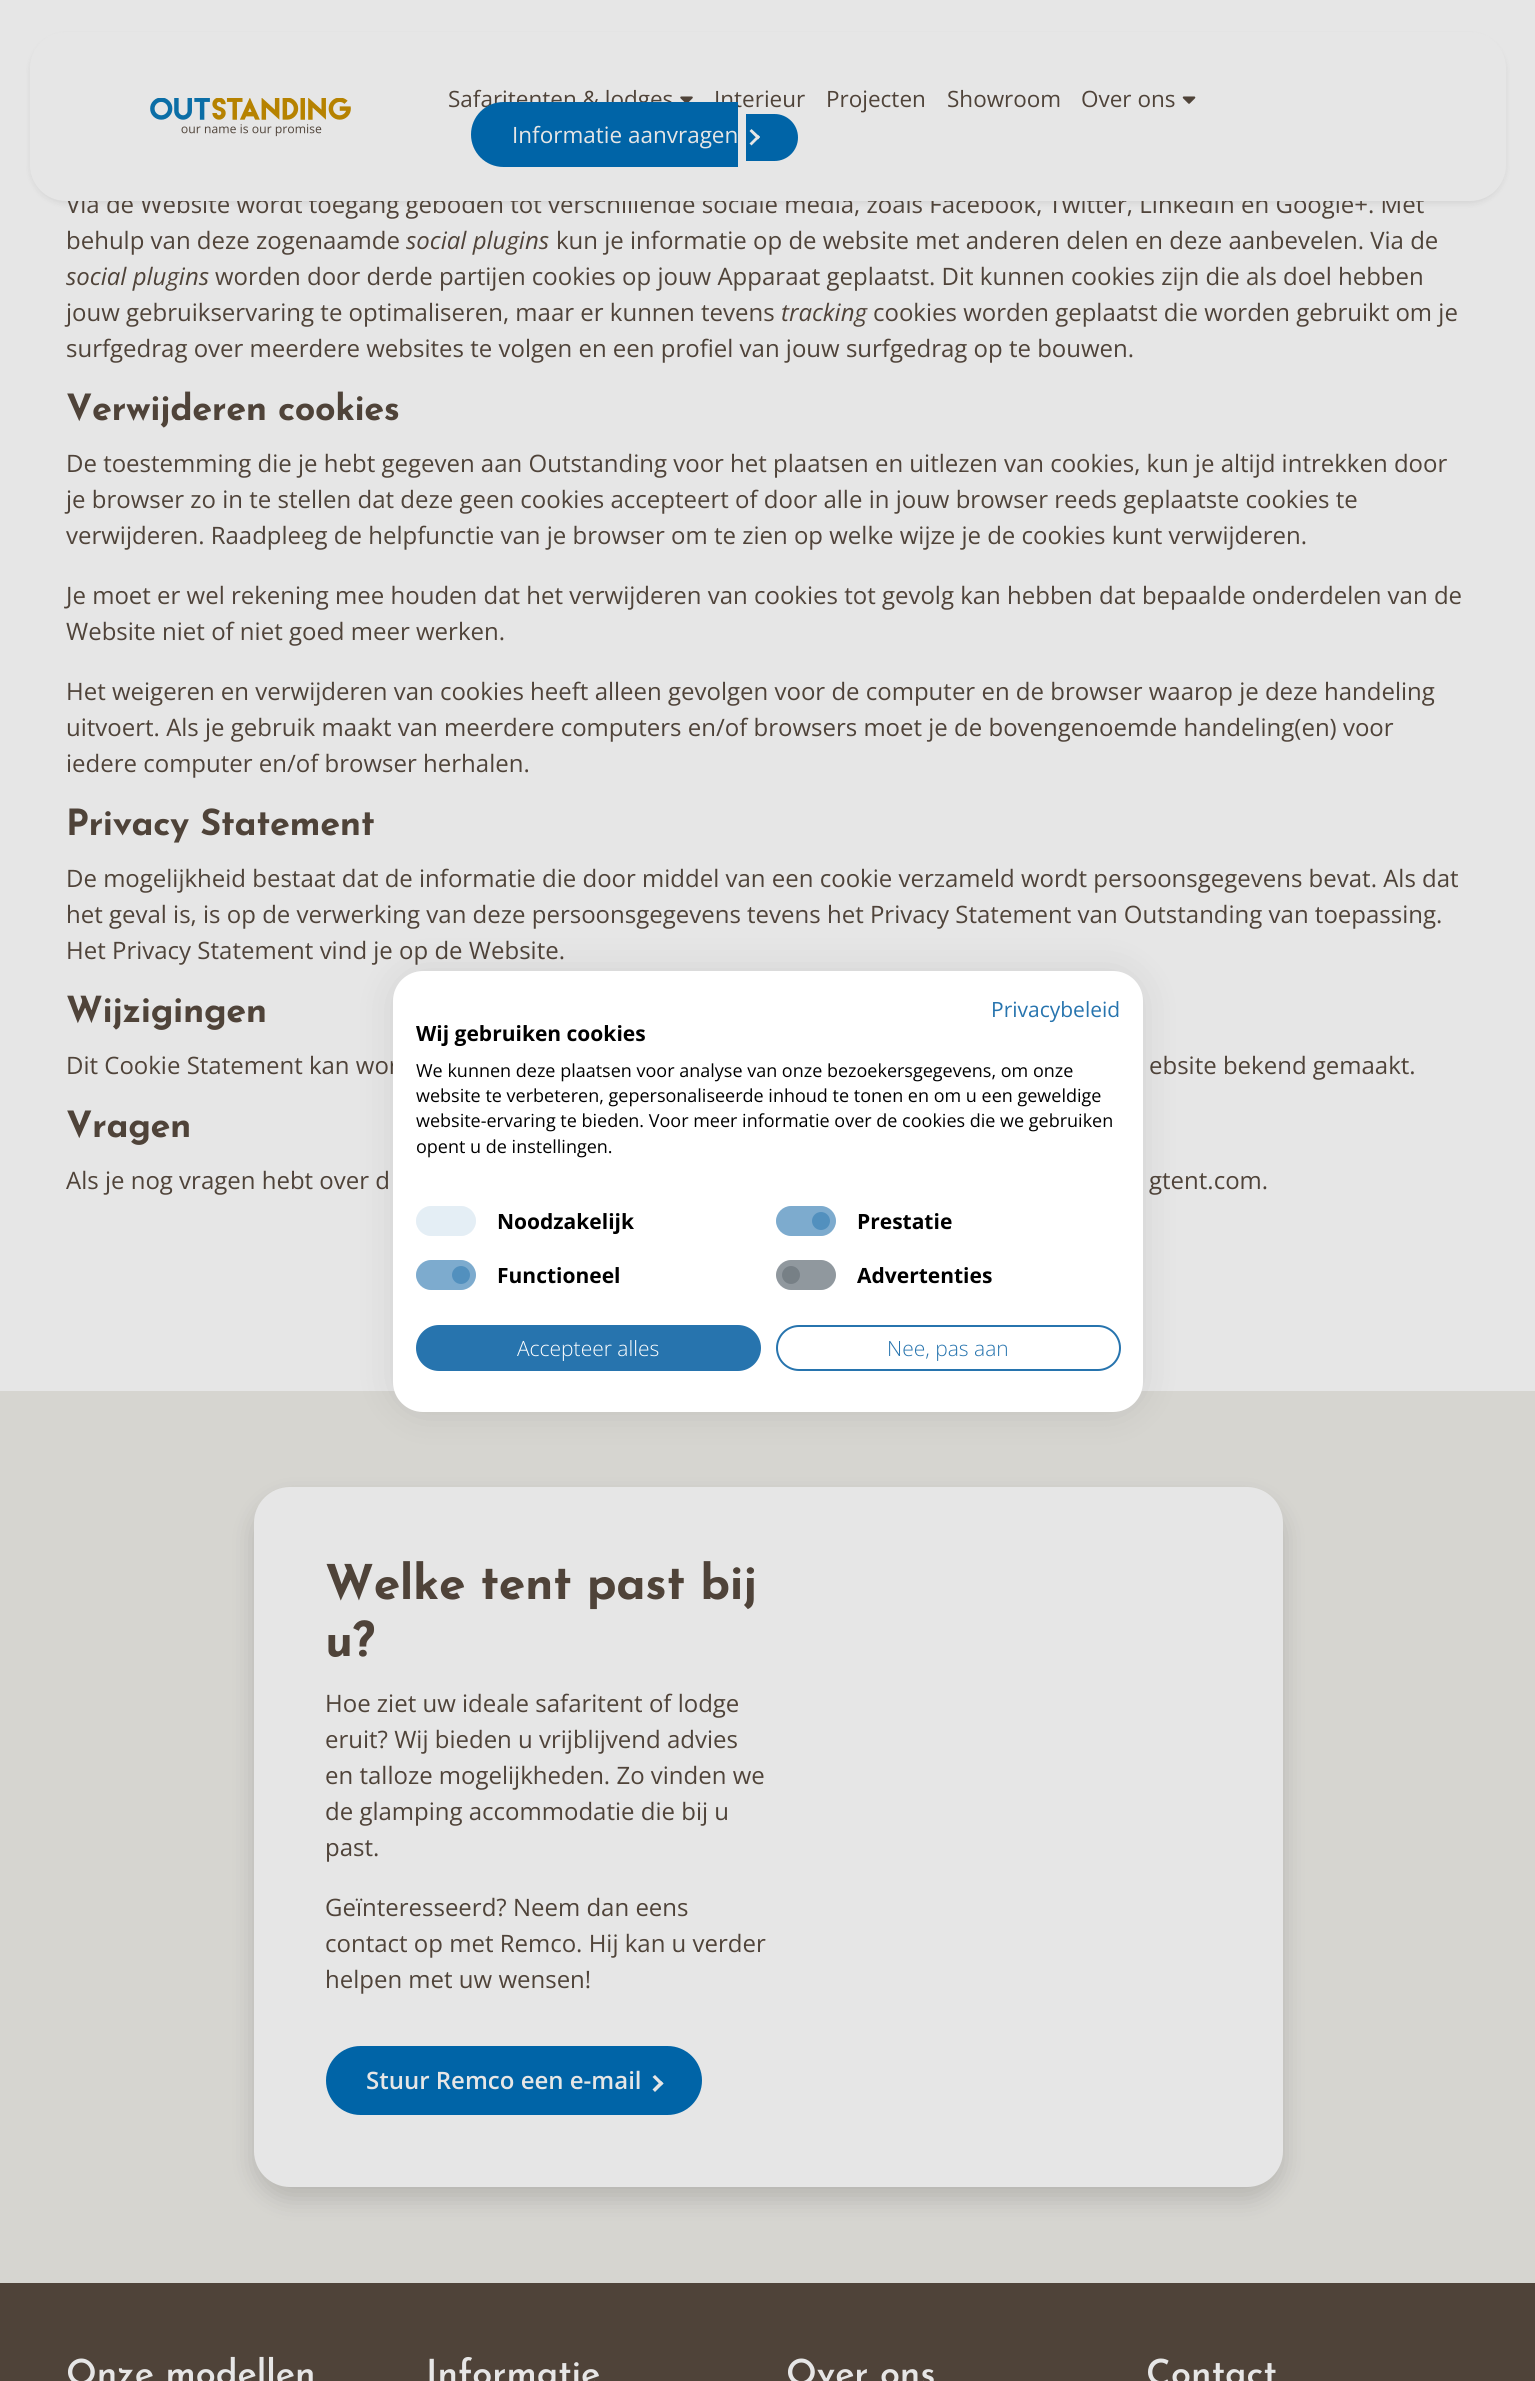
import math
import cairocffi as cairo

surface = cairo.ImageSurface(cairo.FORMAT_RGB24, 1535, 2381)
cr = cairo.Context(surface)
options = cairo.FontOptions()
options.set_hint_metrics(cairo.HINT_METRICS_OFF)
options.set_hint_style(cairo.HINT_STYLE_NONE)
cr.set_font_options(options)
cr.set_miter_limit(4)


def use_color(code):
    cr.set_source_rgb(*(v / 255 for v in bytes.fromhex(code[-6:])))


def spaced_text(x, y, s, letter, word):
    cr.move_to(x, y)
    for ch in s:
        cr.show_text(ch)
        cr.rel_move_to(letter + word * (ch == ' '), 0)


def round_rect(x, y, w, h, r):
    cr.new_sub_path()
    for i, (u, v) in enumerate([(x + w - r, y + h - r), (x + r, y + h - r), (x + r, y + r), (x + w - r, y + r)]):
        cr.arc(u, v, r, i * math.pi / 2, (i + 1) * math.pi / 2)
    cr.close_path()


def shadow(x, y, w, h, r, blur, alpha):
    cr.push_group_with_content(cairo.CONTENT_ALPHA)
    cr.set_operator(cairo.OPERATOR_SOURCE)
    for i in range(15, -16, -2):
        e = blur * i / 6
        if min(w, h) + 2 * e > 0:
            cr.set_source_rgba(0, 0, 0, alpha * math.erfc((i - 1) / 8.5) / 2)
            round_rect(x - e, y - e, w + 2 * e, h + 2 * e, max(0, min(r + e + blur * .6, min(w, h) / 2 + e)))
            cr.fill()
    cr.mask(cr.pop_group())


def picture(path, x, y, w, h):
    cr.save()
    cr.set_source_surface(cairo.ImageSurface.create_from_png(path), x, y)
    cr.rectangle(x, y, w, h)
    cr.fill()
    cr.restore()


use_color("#e6e6e6")
cr.paint()
use_color("#000000")
shadow(30, 35, 1476, 169, 36, 3, 0.07)
cr.select_font_face("Open Sans")
cr.set_font_size(24)
use_color("#4f4339")
cr.move_to(66, 213)
cr.show_text("Via de Website wordt toegang geboden tot verschillende sociale media, zoals Facebook, Twitter, LinkedIn en Google+. Met")
use_color("#e6e6e6")
round_rect(30, 32, 1476, 169, 36)
cr.fill()
picture("img1.png", 150, 98, 201, 39)
cr.set_font_size(22.5)
use_color("#4f4339")
cr.move_to(448, 107)
cr.show_text("Safaritenten & lodges")
picture("img2.png", 680, 96, 13, 6)
cr.move_to(714, 107)
cr.show_text("Interieur")
cr.move_to(826, 107)
cr.show_text("Projecten")
cr.move_to(947, 107)
cr.show_text("Showroom")
cr.move_to(1081, 107)
cr.show_text("Over ons")
picture("img3.png", 1182, 96, 14, 8)
use_color("#0064a7")
cr.new_path()
cr.move_to(503.5, 102)
cr.line_to(738, 102)
cr.line_to(738, 167)
cr.line_to(503.5, 167)
cr.curve_to(485.5, 167, 471, 152.5, 471, 134.5)
cr.curve_to(471, 116.5, 485.5, 102, 503.5, 102)
cr.close_path()
cr.fill()
cr.new_path()
cr.move_to(746, 114)
cr.line_to(774.5, 114)
cr.curve_to(787.5, 114, 798, 124.5, 798, 137.5)
cr.curve_to(798, 150.5, 787.5, 161, 774.5, 161)
cr.line_to(746, 161)
cr.close_path()
cr.fill()
use_color("#e6e6e6")
cr.move_to(512, 143)
cr.show_text("Informatie aanvragen")
cr.new_path()
cr.move_to(751.5, 129)
cr.line_to(760, 137)
cr.line_to(758, 139.5)
cr.line_to(749.5, 131)
cr.close_path()
cr.fill()
cr.new_path()
cr.move_to(758, 135)
cr.line_to(760, 137)
cr.line_to(751.5, 145.5)
cr.line_to(749.5, 143.5)
cr.close_path()
cr.fill()
cr.set_font_size(24)
use_color("#4f4339")
cr.move_to(66, 249)
cr.show_text("behulp van deze zogenaamde")
cr.select_font_face("Open Sans", cairo.FONT_SLANT_ITALIC)
cr.move_to(406, 249)
cr.show_text("social plugins")
cr.select_font_face("Open Sans")
cr.move_to(556, 249)
cr.show_text("kun je informatie op de website met anderen delen en deze aanbevelen. Via de")
cr.select_font_face("Open Sans", cairo.FONT_SLANT_ITALIC)
cr.move_to(66, 285)
cr.show_text("social plugins")
cr.select_font_face("Open Sans")
cr.move_to(215, 285)
cr.show_text("worden door derde partijen cookies op jouw Apparaat geplaatst. Dit kunnen cookies zijn die als doel hebben")
cr.move_to(66, 321)
cr.show_text("jouw gebruikservaring te optimaliseren, maar er kunnen tevens")
cr.select_font_face("Open Sans", cairo.FONT_SLANT_ITALIC)
cr.move_to(781, 321)
cr.show_text("tracking")
cr.select_font_face("Open Sans")
cr.move_to(873, 321)
cr.show_text("cookies worden geplaatst die worden gebruikt om je")
cr.move_to(66, 357)
cr.show_text("surfgedrag over meerdere websites te volgen en een profiel van jouw surfgedrag op te bouwen.")
cr.select_font_face("Josefin Sans Thin")
cr.set_font_size(36)
spaced_text(66, 420, "Verwijderen cookies", -0.4, 0)
cr.select_font_face("Open Sans")
cr.set_font_size(24)
cr.move_to(66, 472)
cr.show_text("De toestemming die je hebt gegeven aan Outstanding voor het plaatsen en uitlezen van cookies, kun je altijd intrekken door")
cr.move_to(66, 508)
cr.show_text("je browser zo in te stellen dat deze geen cookies accepteert of door alle in jouw browser reeds geplaatste cookies te")
cr.move_to(66, 544)
cr.show_text("verwijderen. Raadpleeg de helpfunctie van je browser om te zien op welke wijze je de cookies kunt verwijderen.")
cr.move_to(66, 604)
cr.show_text("Je moet er wel rekening mee houden dat het verwijderen van cookies tot gevolg kan hebben dat bepaalde onderdelen van de")
cr.move_to(66, 640)
cr.show_text("Website niet of niet goed meer werken.")
cr.move_to(66, 700)
cr.show_text("Het weigeren en verwijderen van cookies heeft alleen gevolgen voor de computer en de browser waarop je deze handeling")
cr.move_to(66, 736)
cr.show_text("uitvoert. Als je gebruik maakt van meerdere computers en/of browsers moet je de bovengenoemde handeling(en) voor")
cr.move_to(66, 772)
cr.show_text("iedere computer en/of browser herhalen.")
cr.select_font_face("Josefin Sans Thin")
cr.set_font_size(36)
spaced_text(66, 835, "Privacy Statement", -0.4, 0)
cr.select_font_face("Open Sans")
cr.set_font_size(24)
cr.move_to(66, 887)
cr.show_text("De mogelijkheid bestaat dat de informatie die door middel van een cookie verzameld wordt persoonsgegevens bevat. Als dat")
cr.move_to(66, 923)
cr.show_text("het geval is, is op de verwerking van deze persoonsgegevens tevens het Privacy Statement van Outstanding van toepassing.")
cr.move_to(66, 959)
cr.show_text("Het Privacy Statement vind je op de Website.")
cr.select_font_face("Josefin Sans Thin")
cr.set_font_size(36)
spaced_text(66, 1022, "Wijzigingen", -0.4, 0)
cr.select_font_face("Open Sans")
cr.set_font_size(24)
cr.move_to(66, 1074)
cr.show_text("Dit Cookie Statement kan wor")
cr.move_to(1149, 1074)
cr.show_text("ebsite bekend gemaakt.")
cr.select_font_face("Josefin Sans Thin")
cr.set_font_size(36)
spaced_text(66, 1137, "Vragen", -0.4, 0)
cr.select_font_face("Open Sans")
cr.set_font_size(24)
cr.move_to(66, 1189)
cr.show_text("Als je nog vragen hebt over d")
cr.move_to(1149, 1189)
cr.show_text("gtent.com.")
use_color("#d6d5d0")
cr.rectangle(0, 1391, 1535, 892)
cr.fill()
use_color("#000000")
shadow(254, 1499, 1029, 700, 36, 12, 0.15)
use_color("#e6e6e6")
round_rect(254, 1487, 1029, 700, 36)
cr.fill()
cr.select_font_face("Josefin Sans Thin")
cr.set_font_size(48)
use_color("#4f4339")
spaced_text(325, 1599, "Welke tent past bij", -0.4, 0)
spaced_text(325, 1656, "u?", -0.4, 0)
cr.select_font_face("Open Sans")
cr.set_font_size(24)
cr.move_to(325, 1712)
cr.show_text("Hoe ziet uw ideale safaritent of lodge")
cr.move_to(325, 1748)
cr.show_text("eruit? Wij bieden u vrijblijvend advies")
cr.move_to(325, 1784)
cr.show_text("en talloze mogelijkheden. Zo vinden we")
cr.move_to(325, 1820)
cr.show_text("de glamping accommodatie die bij u")
cr.move_to(325, 1856)
cr.show_text("past.")
cr.move_to(325, 1916)
cr.show_text("Geïnteresseerd? Neem dan eens")
cr.move_to(325, 1952)
cr.show_text("contact op met Remco. Hij kan u verder")
cr.move_to(325, 1988)
cr.show_text("helpen met uw wensen!")
use_color("#0064a7")
round_rect(326, 2046, 376, 69, 34.5)
cr.fill()
cr.select_font_face("Open Sans SemiBold")
use_color("#e6e6e6")
cr.move_to(366, 2089)
cr.show_text("Stuur Remco een e-mail")
cr.new_path()
cr.move_to(655, 2075)
cr.line_to(663.5, 2083.5)
cr.line_to(661, 2085.5)
cr.line_to(652.5, 2077)
cr.close_path()
cr.fill()
cr.new_path()
cr.move_to(661, 2081)
cr.line_to(663.5, 2083.5)
cr.line_to(655, 2092)
cr.line_to(652.5, 2089.5)
cr.close_path()
cr.fill()
use_color("#000000")
shadow(393, 971, 750, 441, 30, 18, 0.1)
use_color("#ffffff")
round_rect(393, 971, 750, 441, 30)
cr.fill()
cr.select_font_face("Open Sans")
cr.set_font_size(21)
use_color("#2774ae")
cr.move_to(991, 1017)
cr.show_text("Privacybeleid")
cr.select_font_face("Open Sans", cairo.FONT_SLANT_NORMAL, cairo.FONT_WEIGHT_BOLD)
use_color("#000000")
cr.move_to(416, 1041)
cr.show_text("Wij gebruiken cookies")
cr.select_font_face("Open Sans")
cr.set_font_size(18)
cr.move_to(416, 1077)
cr.show_text("We kunnen deze plaatsen voor analyse van onze bezoekersgegevens, om onze")
cr.move_to(416, 1102)
cr.show_text("website te verbeteren, gepersonaliseerde inhoud te tonen en om u een geweldige")
cr.move_to(416, 1127)
cr.show_text("website-ervaring te bieden. Voor meer informatie over de cookies die we gebruiken")
cr.move_to(416, 1153)
cr.show_text("opent u de instellingen.")
use_color("#f4f8fb")
round_rect(416, 1206, 60, 30, 15)
cr.fill()
use_color("#e4eef5")
cr.new_path()
cr.move_to(431, 1206)
cr.line_to(461, 1206)
cr.curve_to(469, 1206, 476, 1213, 476, 1221)
cr.curve_to(476, 1229, 469, 1236, 461, 1236)
cr.line_to(431, 1236)
cr.curve_to(423, 1236, 416, 1229, 416, 1221)
cr.curve_to(416, 1213, 423, 1206, 431, 1206)
cr.close_path()
cr.fill()
cr.select_font_face("Open Sans", cairo.FONT_SLANT_NORMAL, cairo.FONT_WEIGHT_BOLD)
cr.set_font_size(21)
use_color("#000000")
cr.move_to(497, 1229)
cr.show_text("Noodzakelijk")
use_color("#d4e3ef")
round_rect(776, 1206, 60, 30, 15)
cr.fill()
use_color("#7eaccf")
cr.arc(821, 1221, 9, 0, 2 * math.pi)
cr.fill()
cr.set_source_rgba(0.153, 0.455, 0.682, 0.5)
cr.new_path()
cr.move_to(791, 1206)
cr.line_to(821, 1206)
cr.curve_to(829, 1206, 836, 1213, 836, 1221)
cr.curve_to(836, 1229, 829, 1236, 821, 1236)
cr.line_to(791, 1236)
cr.curve_to(783, 1236, 776, 1229, 776, 1221)
cr.curve_to(776, 1213, 783, 1206, 791, 1206)
cr.close_path()
cr.fill()
use_color("#000000")
cr.move_to(857, 1229)
cr.show_text("Prestatie")
use_color("#d4e3ef")
round_rect(416, 1260, 60, 30, 15)
cr.fill()
use_color("#7eaccf")
cr.arc(461, 1275, 9, 0, 2 * math.pi)
cr.fill()
cr.set_source_rgba(0.153, 0.455, 0.682, 0.5)
cr.new_path()
cr.move_to(431, 1260)
cr.line_to(461, 1260)
cr.curve_to(469, 1260, 476, 1267, 476, 1275)
cr.curve_to(476, 1283, 469, 1290, 461, 1290)
cr.line_to(431, 1290)
cr.curve_to(423, 1290, 416, 1283, 416, 1275)
cr.curve_to(416, 1267, 423, 1260, 431, 1260)
cr.close_path()
cr.fill()
use_color("#000000")
cr.move_to(497, 1283)
cr.show_text("Functioneel")
use_color("#e9ecef")
round_rect(776, 1260, 60, 30, 15)
cr.fill()
use_color("#92999f")
cr.arc(791, 1275, 9, 0, 2 * math.pi)
cr.fill()
cr.set_source_rgba(0.424, 0.459, 0.49, 0.7)
cr.new_path()
cr.move_to(791, 1260)
cr.line_to(821, 1260)
cr.curve_to(829, 1260, 836, 1267, 836, 1275)
cr.curve_to(836, 1283, 829, 1290, 821, 1290)
cr.line_to(791, 1290)
cr.curve_to(783, 1290, 776, 1283, 776, 1275)
cr.curve_to(776, 1267, 783, 1260, 791, 1260)
cr.close_path()
cr.fill()
use_color("#000000")
cr.move_to(857, 1283)
cr.show_text("Advertenties")
use_color("#2774ae")
round_rect(417, 1326, 343, 44, 22)
cr.fill_preserve()
cr.stroke()
cr.select_font_face("Open Sans Light")
use_color("#ffffff")
cr.move_to(517, 1356)
cr.show_text("Accepteer alles")
round_rect(777, 1326, 343, 44, 22)
use_color("#2774ae")
cr.stroke()
cr.move_to(887, 1356)
cr.show_text("Nee, pas aan")
use_color("#4f4339")
cr.rectangle(0, 2283, 1535, 98)
cr.fill()
cr.select_font_face("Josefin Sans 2 Thin")
cr.set_font_size(36)
use_color("#e6e6e6")
cr.move_to(66, 2385)
cr.show_text("Onze modellen")
cr.move_to(426, 2385)
cr.show_text("Informatie")
cr.move_to(786, 2385)
cr.show_text("Over ons")
cr.move_to(1146, 2385)
cr.show_text("Contact")
surface.write_to_png("result.png")
